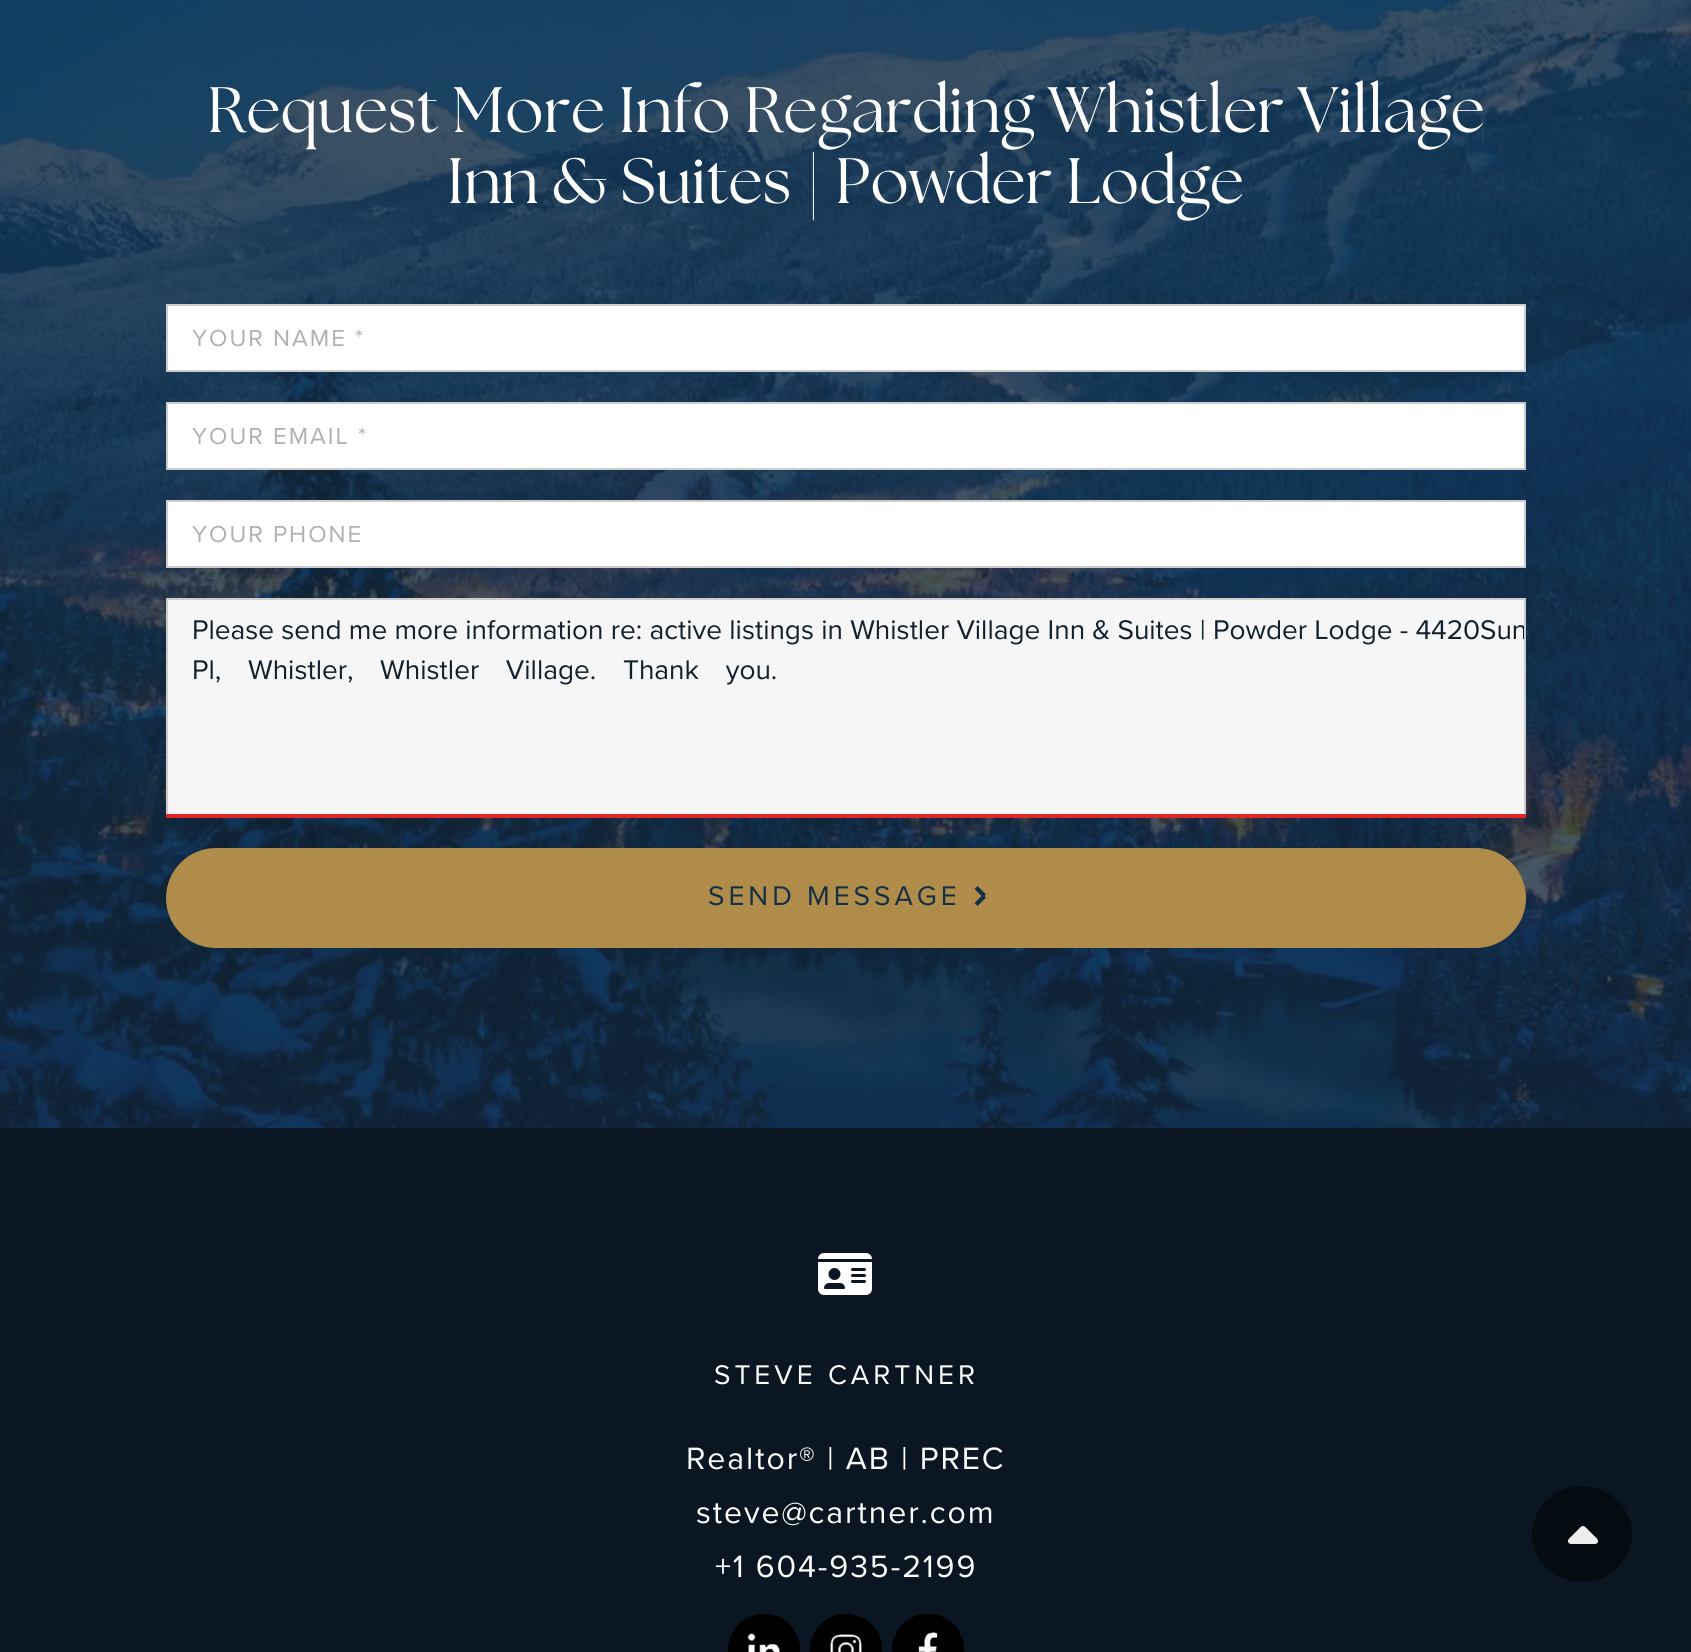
import math
import cairocffi as cairo

surface = cairo.ImageSurface(cairo.FORMAT_RGB24, 1691, 1652)
cr = cairo.Context(surface)
options = cairo.FontOptions()
options.set_hint_metrics(cairo.HINT_METRICS_OFF)
options.set_hint_style(cairo.HINT_STYLE_NONE)
cr.set_font_options(options)
cr.set_miter_limit(4)


def use_color(code):
    cr.set_source_rgb(*(v / 255 for v in bytes.fromhex(code[-6:])))


def spaced_text(x, y, s, letter, word):
    cr.move_to(x, y)
    for ch in s:
        cr.show_text(ch)
        cr.rel_move_to(letter + word * (ch == ' '), 0)


def round_rect(x, y, w, h, r):
    cr.new_sub_path()
    for i, (u, v) in enumerate([(x + w - r, y + h - r), (x + r, y + h - r), (x + r, y + r), (x + w - r, y + r)]):
        cr.arc(u, v, r, i * math.pi / 2, (i + 1) * math.pi / 2)
    cr.close_path()


def picture(path, x, y, w, h):
    cr.save()
    cr.set_source_surface(cairo.ImageSurface.create_from_png(path), x, y)
    cr.rectangle(x, y, w, h)
    cr.fill()
    cr.restore()


use_color("#0a1722")
cr.paint()
picture("img1.png", 0, 0, 1691, 1128)
cr.select_font_face("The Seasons")
cr.set_font_size(64)
use_color("#ffffff")
cr.move_to(207, 132)
cr.show_text("Request More Info Regarding Whistler Village")
cr.move_to(447, 203)
cr.show_text("Inn & Suites | Powder Lodge")
cr.rectangle(167, 305, 1358, 66)
cr.fill_preserve()
use_color("#cccccc")
cr.stroke()
cr.select_font_face("Proxima Nova")
cr.set_font_size(24)
use_color("#aeb0b2")
spaced_text(192, 346, "YOUR NAME *", 2, 0)
use_color("#ffffff")
cr.rectangle(167, 403, 1358, 66)
cr.fill_preserve()
use_color("#cccccc")
cr.stroke()
use_color("#aeb0b2")
spaced_text(192, 444, "YOUR EMAIL *", 2, 0)
use_color("#ffffff")
cr.rectangle(167, 501, 1358, 66)
cr.fill_preserve()
use_color("#cccccc")
cr.stroke()
use_color("#aeb0b2")
spaced_text(192, 542, "YOUR PHONE", 2, 0)
use_color("#f6f6f6")
cr.rectangle(168, 600, 1356, 214)
cr.fill()
cr.rectangle(167, 599, 1358, 218)
use_color("#cccccc")
cr.stroke()
cr.set_font_size(28)
use_color("#12212e")
cr.move_to(192, 639)
cr.show_text("Please send me more information re: active listings in Whistler Village Inn & Suites | Powder Lodge - 4420")
cr.save()
cr.rectangle(168, 600, 1356, 216)
cr.clip()
cr.move_to(1480, 639)
cr.show_text("Sun")
cr.restore()
spaced_text(192, 679, "Pl, Whistler, Whistler Village. Thank you.", 0, 19.5)
use_color("#e12726")
cr.rectangle(166, 814, 1360, 4)
cr.fill()
use_color("#af8c4a")
round_rect(167, 849, 1358, 98, 49)
cr.fill_preserve()
cr.stroke()
use_color("#152f45")
spaced_text(708, 905, "SEND MESSAGE", 4, 0)
cr.new_path()
cr.move_to(974.5, 903)
cr.line_to(983, 894.5)
cr.line_to(986, 897.5)
cr.line_to(977.5, 906)
cr.close_path()
cr.fill()
cr.new_path()
cr.move_to(977.5, 886)
cr.line_to(986, 894.5)
cr.line_to(983, 897.5)
cr.line_to(974.5, 889)
cr.close_path()
cr.fill()
picture("img2.png", 818, 1253, 54, 42)
use_color("#ffffff")
spaced_text(714, 1384, "STEVE CARTNER", 4, 0)
cr.set_font_size(32)
spaced_text(686, 1469, "Realtor® | AB | PREC", 1.9, 0)
spaced_text(696, 1523, "steve@cartner.com", 1.9, 0)
spaced_text(715, 1577, "+1 604-935-2199", 1.9, 0)
picture("img3.png", 728, 1614, 72, 38)
picture("img4.png", 810, 1614, 72, 38)
picture("img5.png", 892, 1614, 72, 38)
use_color("#050c11")
cr.new_path()
cr.move_to(1582, 1486)
cr.curve_to(1609.5, 1486, 1632, 1507.5, 1632, 1534)
cr.curve_to(1632, 1560.5, 1609.5, 1582, 1582, 1582)
cr.curve_to(1554.5, 1582, 1532, 1560.5, 1532, 1534)
cr.curve_to(1532, 1507.5, 1554.5, 1486, 1582, 1486)
cr.close_path()
cr.fill()
picture("img6.png", 1568, 1526, 30, 18)
surface.write_to_png("result.png")
